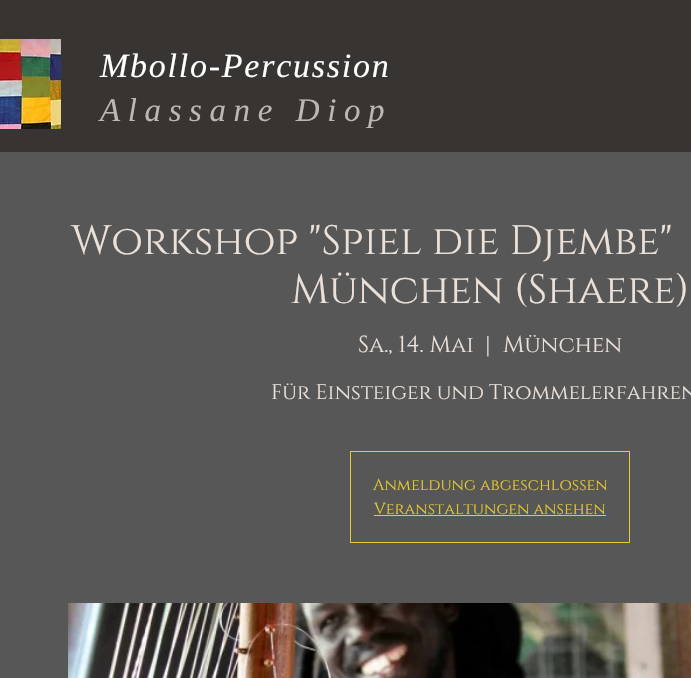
#include "include/core/SkBlurTypes.h"
#include "include/core/SkCanvas.h"
#include "include/core/SkData.h"
#include "include/core/SkFont.h"
#include "include/core/SkFontMgr.h"
#include "include/core/SkImage.h"
#include "include/core/SkMaskFilter.h"
#include "include/core/SkPaint.h"
#include "include/core/SkPathBuilder.h"
#include "include/core/SkTextBlob.h"
#include "include/effects/SkDashPathEffect.h"
#include "include/effects/SkGradientShader.h"
#include "include/utils/SkParsePath.h"

extern sk_sp<SkFontMgr> fontMgr;

void draw(SkCanvas* canvas) {
  SkPaint p;
  p.setAntiAlias(true);
  auto spacedText = [&](const char* s, float x, float y, const SkFont& font, const SkPaint& ink, float letter, float word) {
    std::vector<SkGlyphID> glyphs(font.countText(s, strlen(s), SkTextEncoding::kUTF8));
    std::vector<float> xs(glyphs.size());
    font.textToGlyphs(s, strlen(s), SkTextEncoding::kUTF8, glyphs);
    font.getXPos(glyphs, xs, x);
    float extra = 0;
    for (size_t i = 0; i < glyphs.size(); i++) {
      xs[i] += extra;
      extra += letter + word * (glyphs[i] == font.unicharToGlyph(' '));
    }
    canvas->drawTextBlob(SkTextBlob::MakeFromPosHGlyphs(glyphs, xs, y, font), 0, 0, ink);
  };
  canvas->clear(SkColorSetRGB(56, 52, 50));
  canvas->drawImageRect(SkImages::DeferredFromEncodedData(SkData::MakeFromFileName("images/1.png")), SkRect::MakeLTRB(0, 39, 61, 129), SkSamplingOptions());
  p.setColor(SkColorSetRGB(87, 87, 87));
  canvas->drawRect(SkRect::MakeLTRB(0, 152, 691, 678), p);
  p.setStyle(SkPaint::kStroke_Style);
  p.setStrokeWidth(1);
  p.setColor(SkColorSetRGB(233, 204, 43));
  canvas->drawRect(SkRect::MakeLTRB(350.5f, 451.5f, 629.5f, 542.5f), p);
  p.setStyle(SkPaint::kFill_Style);
  canvas->drawRect(SkRect::MakeLTRB(374, 515, 606, 516), p);
  canvas->drawImageRect(SkImages::DeferredFromEncodedData(SkData::MakeFromFileName("images/2.png")), SkRect::MakeLTRB(68, 603, 691, 678), SkSamplingOptions());
  SkFont font1(fontMgr->matchFamilyStyle("Liberation Serif", SkFontStyle::Italic()), 34);
  font1.setSubpixel(true);
  p.setColor(SK_ColorWHITE);
  spacedText("Mbollo-Percussion", 100, 77, font1, p, 1.75f, 0);
  SkFont font2(fontMgr->matchFamilyStyle("Liberation Serif", SkFontStyle::Italic()), 33);
  font2.setSubpixel(true);
  p.setColor(SkColorSetRGB(190, 182, 176));
  spacedText("Alassane Diop", 100, 121, font2, p, 7.6f, 0);
  SkFont font3(fontMgr->matchFamilyStyle("Cinzel", SkFontStyle::Normal()), 41);
  font3.setSubpixel(true);
  p.setColor(SkColorSetRGB(235, 225, 217));
  canvas->drawString("Workshop \"Spiel die Djembe\"", 71, 254, font3, p);
  canvas->drawString("München (Shaere)", 291, 303, font3, p);
  SkFont font4(fontMgr->matchFamilyStyle("Cinzel", SkFontStyle::Normal()), 23);
  font4.setSubpixel(true);
  canvas->drawString("Sa., 14. Mai", 358, 352, font4, p);
  canvas->drawString("|", 485, 352, font4, p);
  canvas->drawString("München", 503, 352, font4, p);
  SkFont font5(fontMgr->matchFamilyStyle("Cinzel", SkFontStyle::Normal()), 21);
  font5.setSubpixel(true);
  canvas->drawString("Für Einsteiger und Trommelerfahren", 271, 399, font5, p);
  SkFont font6(fontMgr->matchFamilyStyle("Cinzel", SkFontStyle::Normal()), 16);
  font6.setSubpixel(true);
  p.setColor(SkColorSetRGB(233, 204, 43));
  canvas->drawString("Anmeldung abgeschlossen", 373, 490, font6, p);
  canvas->drawString("Veranstaltungen ansehen", 374, 514, font6, p);
}
